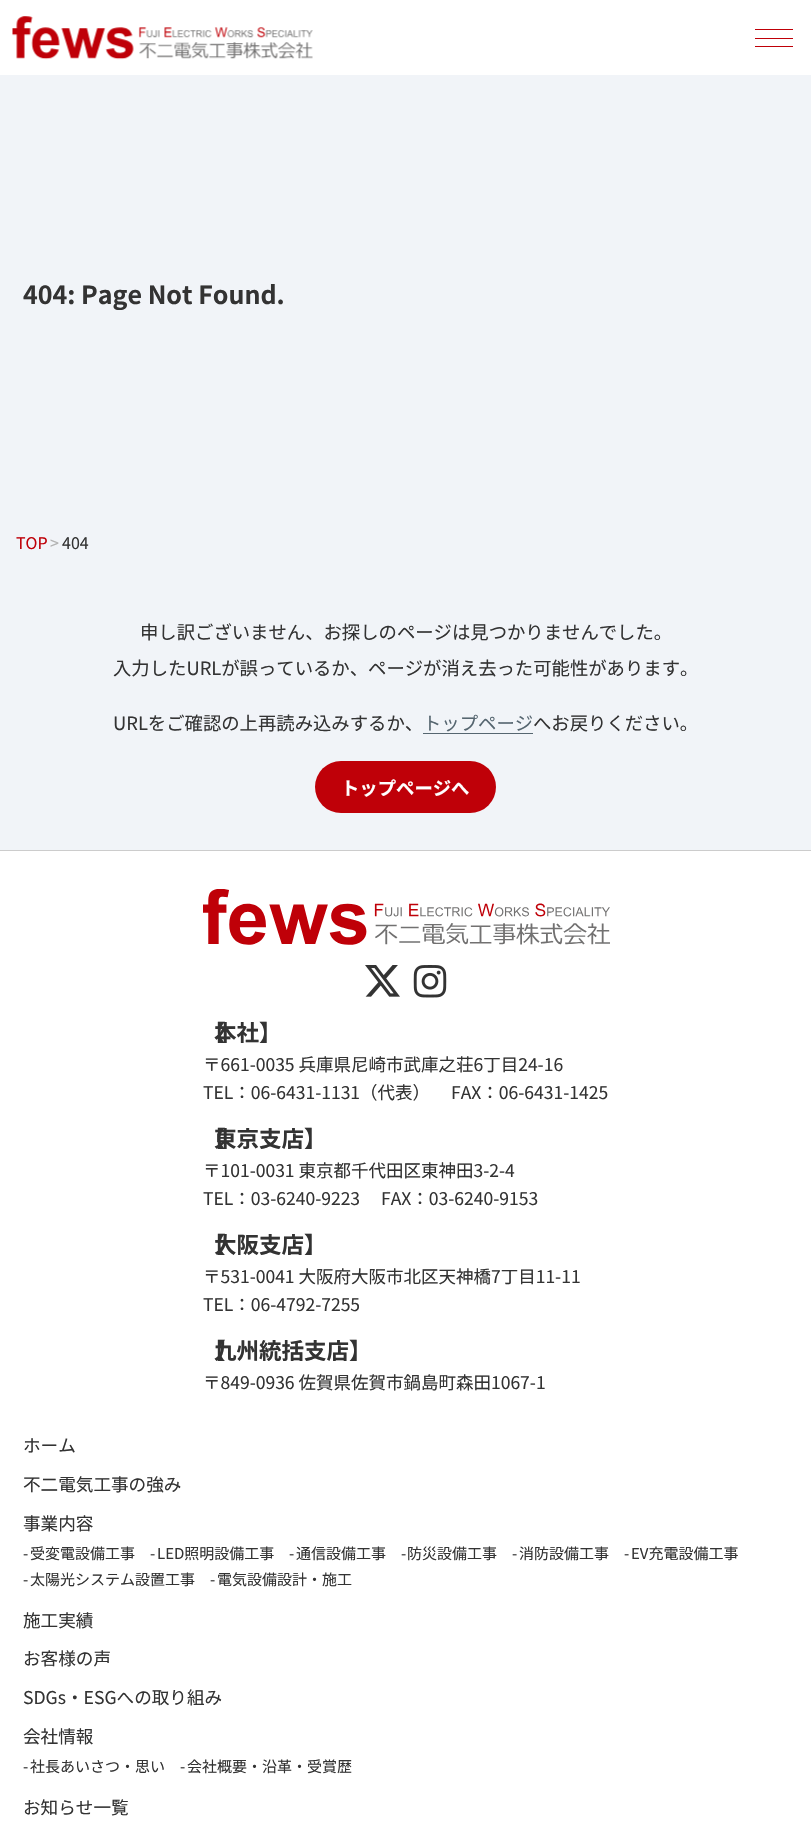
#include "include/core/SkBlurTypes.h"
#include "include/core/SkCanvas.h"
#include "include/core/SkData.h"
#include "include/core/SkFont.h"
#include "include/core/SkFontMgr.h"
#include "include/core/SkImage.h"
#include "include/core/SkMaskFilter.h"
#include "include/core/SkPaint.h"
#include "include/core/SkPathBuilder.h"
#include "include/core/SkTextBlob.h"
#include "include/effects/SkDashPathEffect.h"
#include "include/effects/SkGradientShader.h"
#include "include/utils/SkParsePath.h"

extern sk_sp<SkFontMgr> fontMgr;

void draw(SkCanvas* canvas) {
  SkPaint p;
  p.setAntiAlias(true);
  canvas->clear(SK_ColorWHITE);
  canvas->drawImageRect(SkImages::DeferredFromEncodedData(SkData::MakeFromFileName("images/1.png")), SkRect::MakeLTRB(12, 16, 313, 60), SkSamplingOptions());
  p.setColor(SkColorSetRGB(191, 0, 8));
  canvas->drawRect(SkRect::MakeLTRB(755, 29, 793, 30), p);
  canvas->drawRect(SkRect::MakeLTRB(755, 38, 793, 39), p);
  canvas->drawRect(SkRect::MakeLTRB(755, 46, 793, 47), p);
  p.setColor(SkColorSetRGB(241, 244, 248));
  canvas->drawRect(SkRect::MakeLTRB(0, 75, 811, 850), p);
  p.setColor(SkColorSetRGB(86, 102, 112));
  canvas->drawRect(SkRect::MakeLTRB(423, 733, 533, 734), p);
  p.setColor(SkColorSetRGB(191, 0, 8));
  canvas->drawRoundRect(SkRect::MakeLTRB(315, 761, 496, 813), 26, 26, p);
  p.setColor(SkColorSetRGB(204, 204, 204));
  canvas->drawRect(SkRect::MakeLTRB(0, 850, 811, 851), p);
  canvas->drawImageRect(SkImages::DeferredFromEncodedData(SkData::MakeFromFileName("images/2.png")), SkRect::MakeLTRB(203, 889, 610, 945), SkSamplingOptions());
  canvas->drawImageRect(SkImages::DeferredFromEncodedData(SkData::MakeFromFileName("images/3.png")), SkRect::MakeLTRB(365, 965, 400, 997), SkSamplingOptions());
  canvas->drawImageRect(SkImages::DeferredFromEncodedData(SkData::MakeFromFileName("images/4.png")), SkRect::MakeLTRB(413, 965, 447, 998), SkSamplingOptions());
  SkFont font1(fontMgr->matchFamilyStyle("Noto Sans JP", SkFontStyle::Bold()), 25);
  font1.setSubpixel(true);
  p.setColor(SkColorSetRGB(51, 51, 51));
  canvas->drawString("404: Page Not Found.", 23, 304, font1, p);
  SkFont font2(fontMgr->matchFamilyStyle("Noto Sans JP", SkFontStyle::Normal()), 16);
  font2.setSubpixel(true);
  p.setColor(SkColorSetRGB(191, 0, 8));
  canvas->drawString("TOP", 16, 549, font2, p);
  p.setColor(SkColorSetRGB(178, 178, 178));
  canvas->drawString(">", 50, 549, font2, p);
  p.setColor(SkColorSetRGB(51, 51, 51));
  canvas->drawString("404", 62, 549, font2, p);
  SkFont font3(fontMgr->matchFamilyStyle("Noto Sans JP", SkFontStyle::Normal()), 18.35f);
  font3.setSubpixel(true);
  canvas->drawString("申し訳ございません、お探しのページは見つかりませんでした。", 140, 639, font3, p);
  canvas->drawString("入力したURLが誤っているか、ページが消え去った可能性があります。", 113, 675, font3, p);
  canvas->drawString("URLをご確認の上再読み込みするか、", 113, 730, font3, p);
  p.setColor(SkColorSetRGB(86, 102, 112));
  canvas->drawString("トップページ", 423, 730, font3, p);
  p.setColor(SkColorSetRGB(51, 51, 51));
  canvas->drawString("へお戻りください。", 533, 730, font3, p);
  SkFont font4(fontMgr->matchFamilyStyle("Noto Sans JP", SkFontStyle::Bold()), 18.35f);
  font4.setSubpixel(true);
  p.setColor(SK_ColorWHITE);
  canvas->drawString("トップページへ", 341, 795, font4, p);
  SkFont font5(fontMgr->matchFamilyStyle("Noto Sans JP", SkFontStyle::Bold()), 22.5f);
  font5.setSubpixel(true);
  p.setColor(SkColorSetRGB(51, 51, 51));
  canvas->drawString("【", 203, 1041, font5, p);
  canvas->drawString("本社】", 214, 1041, font5, p);
  SkFont font6(fontMgr->matchFamilyStyle("Noto Sans JP", SkFontStyle::Normal()), 17.5f);
  font6.setSubpixel(true);
  canvas->drawString("〒661-0035 兵庫県尼崎市武庫之荘6丁目24-16", 203, 1071, font6, p);
  canvas->drawString("TEL：06-6431-1131（代表）", 203, 1099, font6, p);
  canvas->drawString("FAX：06-6431-1425", 451, 1099, font6, p);
  canvas->drawString("【", 203, 1147, font5, p);
  canvas->drawString("東京支店】", 214, 1147, font5, p);
  canvas->drawString("〒101-0031 東京都千代田区東神田3-2-4", 203, 1177, font6, p);
  canvas->drawString("TEL：03-6240-9223", 203, 1205, font6, p);
  canvas->drawString("FAX：03-6240-9153", 381, 1205, font6, p);
  canvas->drawString("【", 203, 1253, font5, p);
  canvas->drawString("大阪支店】", 214, 1253, font5, p);
  canvas->drawString("〒531-0041 大阪府大阪市北区天神橋7丁目11-11", 203, 1283, font6, p);
  canvas->drawString("TEL：06-4792-7255", 203, 1311, font6, p);
  canvas->drawString("【", 203, 1359, font5, p);
  canvas->drawString("九州統括支店】", 214, 1359, font5, p);
  canvas->drawString("〒849-0936 佐賀県佐賀市鍋島町森田1067-1", 203, 1389, font6, p);
  SkFont font7(fontMgr->matchFamilyStyle("Noto Sans JP", SkFontStyle::Normal()), 17.6f);
  font7.setSubpixel(true);
  canvas->drawString("ホーム", 23, 1452, font7, p);
  canvas->drawString("不二電気工事の強み", 23, 1491, font7, p);
  canvas->drawString("事業内容", 23, 1530, font7, p);
  SkFont font8(fontMgr->matchFamilyStyle("Noto Sans JP", SkFontStyle::Normal()), 15);
  font8.setSubpixel(true);
  canvas->drawString("-", 23, 1559, font8, p);
  canvas->drawString("受変電設備工事", 30, 1559, font8, p);
  canvas->drawString("-", 150, 1559, font8, p);
  canvas->drawString("LED照明設備工事", 157, 1559, font8, p);
  canvas->drawString("-", 289, 1559, font8, p);
  canvas->drawString("通信設備工事", 296, 1559, font8, p);
  canvas->drawString("-", 401, 1559, font8, p);
  canvas->drawString("防災設備工事", 407, 1559, font8, p);
  canvas->drawString("-", 512, 1559, font8, p);
  canvas->drawString("消防設備工事", 519, 1559, font8, p);
  canvas->drawString("-", 624, 1559, font8, p);
  canvas->drawString("EV充電設備工事", 631, 1559, font8, p);
  canvas->drawString("-", 23, 1585, font8, p);
  canvas->drawString("太陽光システム設置工事", 30, 1585, font8, p);
  canvas->drawString("-", 210, 1585, font8, p);
  canvas->drawString("電気設備設計・施工", 217, 1585, font8, p);
  canvas->drawString("施工実績", 23, 1627, font7, p);
  canvas->drawString("お客様の声", 23, 1665, font7, p);
  canvas->drawString("SDGs・ESGへの取り組み", 23, 1704, font7, p);
  canvas->drawString("会社情報", 23, 1743, font7, p);
  canvas->drawString("-", 23, 1772, font8, p);
  canvas->drawString("社長あいさつ・思い", 30, 1772, font8, p);
  canvas->drawString("-", 180, 1772, font8, p);
  canvas->drawString("会社概要・沿革・受賞歴", 187, 1772, font8, p);
  canvas->drawString("お知らせ一覧", 23, 1814, font7, p);
}
